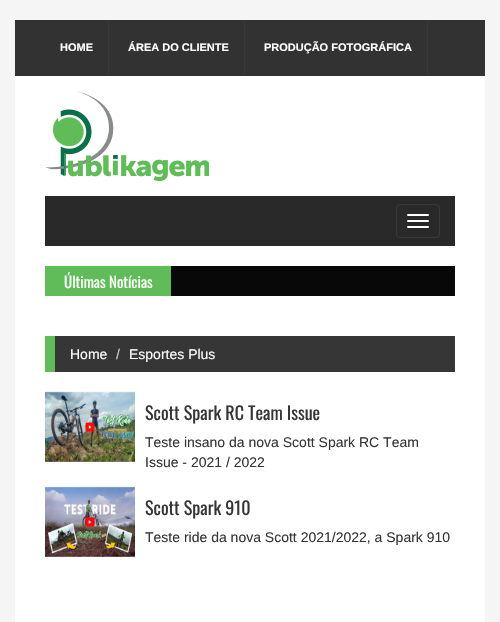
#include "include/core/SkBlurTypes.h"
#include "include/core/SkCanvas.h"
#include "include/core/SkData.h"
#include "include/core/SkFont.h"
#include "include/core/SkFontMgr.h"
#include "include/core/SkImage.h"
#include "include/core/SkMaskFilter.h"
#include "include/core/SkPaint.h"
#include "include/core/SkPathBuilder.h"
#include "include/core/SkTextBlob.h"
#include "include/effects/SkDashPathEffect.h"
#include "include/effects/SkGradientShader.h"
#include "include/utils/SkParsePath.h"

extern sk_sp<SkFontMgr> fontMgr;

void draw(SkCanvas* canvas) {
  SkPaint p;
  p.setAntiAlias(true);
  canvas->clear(SkColorSetRGB(245, 245, 245));
  p.setColor(SkColorSetRGB(50, 50, 50));
  canvas->drawRect(SkRect::MakeLTRB(15, 20, 485, 76), p);
  p.setColor(SkColorSetRGB(57, 57, 57));
  canvas->drawRect(SkRect::MakeLTRB(108, 20, 109, 76), p);
  canvas->drawRect(SkRect::MakeLTRB(244, 20, 245, 76), p);
  canvas->drawRect(SkRect::MakeLTRB(427, 20, 428, 76), p);
  p.setColor(SK_ColorWHITE);
  canvas->drawRect(SkRect::MakeLTRB(15, 76, 485, 622), p);
  canvas->drawImageRect(SkImages::DeferredFromEncodedData(SkData::MakeFromFileName("images/1.png")), SkRect::MakeLTRB(45, 91, 209, 181), SkSamplingOptions());
  p.setColor(SkColorSetRGB(41, 41, 41));
  canvas->drawRect(SkRect::MakeLTRB(45, 196, 455, 246), p);
  p.setStyle(SkPaint::kStroke_Style);
  p.setStrokeWidth(1);
  p.setColor(SkColorSetRGB(57, 57, 57));
  canvas->drawRoundRect(SkRect::MakeLTRB(396.5f, 204.5f, 439.5f, 237.5f), 3.5f, 3.5f, p);
  p.setStyle(SkPaint::kFill_Style);
  p.setColor(SK_ColorWHITE);
  canvas->drawRoundRect(SkRect::MakeLTRB(407, 214, 429, 216), 1, 1, p);
  canvas->drawRoundRect(SkRect::MakeLTRB(407, 220, 429, 222), 1, 1, p);
  canvas->drawRoundRect(SkRect::MakeLTRB(407, 226, 429, 228), 1, 1, p);
  p.setColor(SkColorSetRGB(8, 8, 8));
  canvas->drawRect(SkRect::MakeLTRB(171, 266, 455, 296), p);
  p.setColor(SkColorSetRGB(96, 188, 89));
  canvas->drawRect(SkRect::MakeLTRB(45, 266, 171, 296), p);
  p.setColor(SkColorSetRGB(54, 54, 54));
  canvas->drawRect(SkRect::MakeLTRB(55, 336, 455, 372), p);
  p.setColor(SkColorSetRGB(96, 188, 89));
  canvas->drawRect(SkRect::MakeLTRB(45, 336, 55, 372), p);
  canvas->drawImageRect(SkImages::DeferredFromEncodedData(SkData::MakeFromFileName("images/2.png")), SkRect::MakeLTRB(45, 391, 135, 462), SkSamplingOptions());
  canvas->drawImageRect(SkImages::DeferredFromEncodedData(SkData::MakeFromFileName("images/3.png")), SkRect::MakeLTRB(45, 486, 135, 557), SkSamplingOptions());
  SkFont font1(fontMgr->matchFamilyStyle("Liberation Sans", SkFontStyle::Bold()), 11);
  font1.setSubpixel(true);
  p.setColor(SK_ColorWHITE);
  canvas->drawString("HOME", 60, 51, font1, p);
  canvas->drawString("ÁREA DO CLIENTE", 128, 51, font1, p);
  canvas->drawString("PRODUÇÃO FOTOGRÁFICA", 264, 51, font1, p);
  SkFont font2(fontMgr->matchFamilyStyle("Oswald", SkFontStyle::Normal()), 15);
  font2.setSubpixel(true);
  canvas->drawString("Últimas Notícias", 64, 288, font2, p);
  SkFont font3(fontMgr->matchFamilyStyle("Liberation Sans", SkFontStyle::Normal()), 14);
  font3.setSubpixel(true);
  canvas->drawString("Home", 70, 359, font3, p);
  p.setColor(SkColorSetRGB(206, 206, 206));
  canvas->drawString("/", 116, 359, font3, p);
  p.setColor(SK_ColorWHITE);
  canvas->drawString("Esportes Plus", 129, 359, font3, p);
  SkFont font4(fontMgr->matchFamilyStyle("Oswald", SkFontStyle::Normal()), 18);
  font4.setSubpixel(true);
  p.setColor(SkColorSetRGB(53, 53, 53));
  canvas->drawString("Scott Spark RC Team Issue", 145, 420, font4, p);
  canvas->drawString("Teste insano da nova Scott Spark RC Team", 145, 447, font3, p);
  canvas->drawString("Issue - 2021 / 2022", 145, 467, font3, p);
  canvas->drawString("Scott Spark 910", 145, 515, font4, p);
  canvas->drawString("Teste ride da nova Scott 2021/2022, a Spark 910", 145, 542, font3, p);
}
